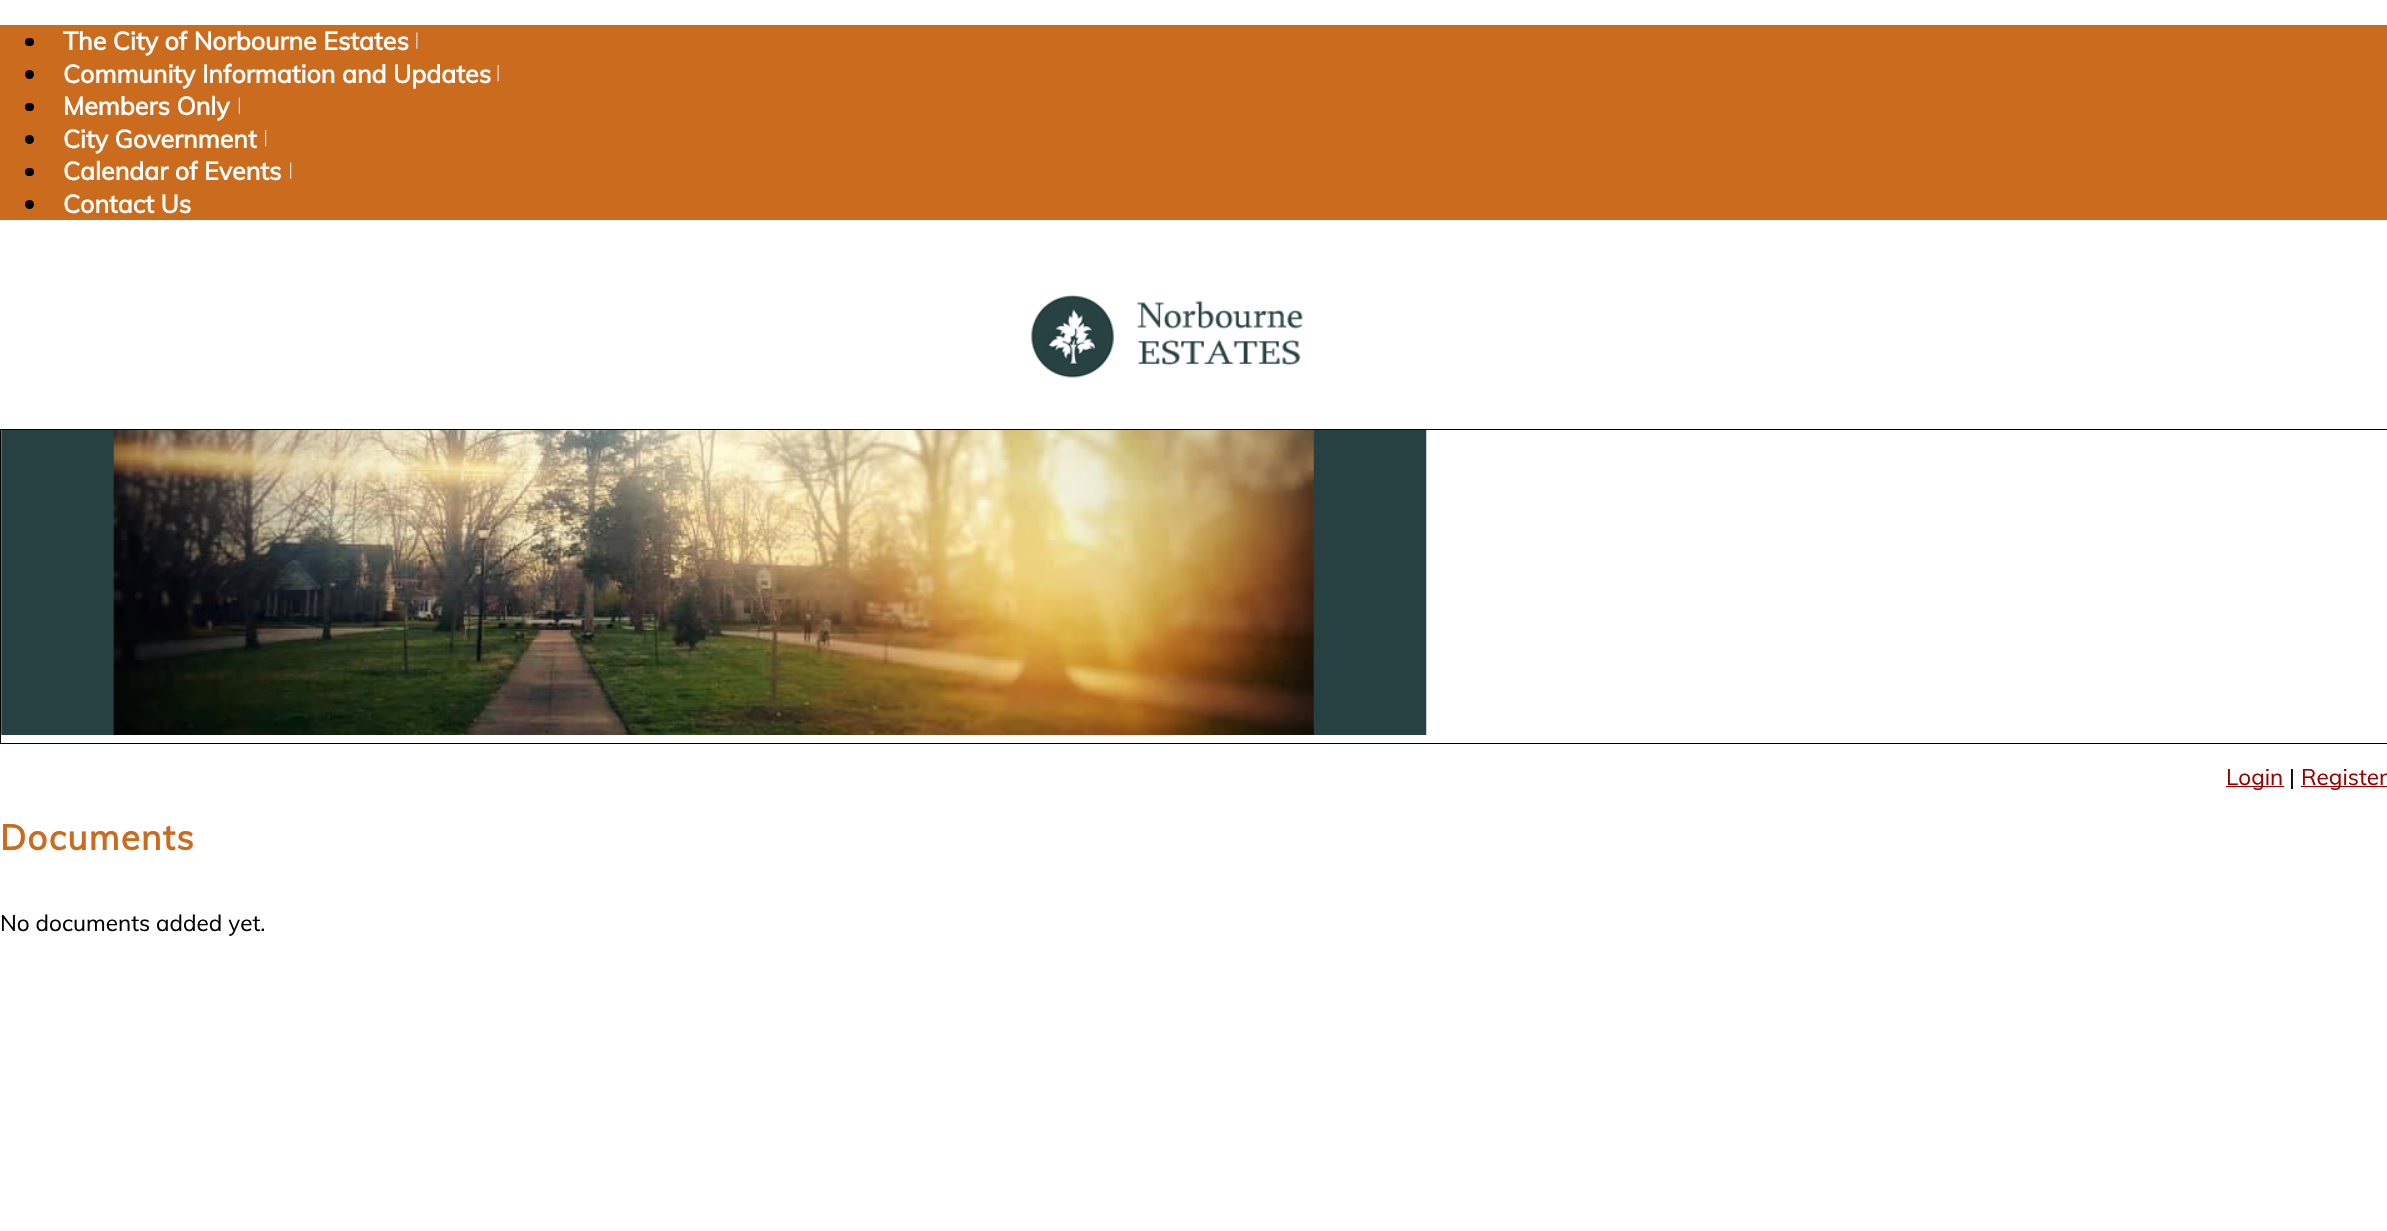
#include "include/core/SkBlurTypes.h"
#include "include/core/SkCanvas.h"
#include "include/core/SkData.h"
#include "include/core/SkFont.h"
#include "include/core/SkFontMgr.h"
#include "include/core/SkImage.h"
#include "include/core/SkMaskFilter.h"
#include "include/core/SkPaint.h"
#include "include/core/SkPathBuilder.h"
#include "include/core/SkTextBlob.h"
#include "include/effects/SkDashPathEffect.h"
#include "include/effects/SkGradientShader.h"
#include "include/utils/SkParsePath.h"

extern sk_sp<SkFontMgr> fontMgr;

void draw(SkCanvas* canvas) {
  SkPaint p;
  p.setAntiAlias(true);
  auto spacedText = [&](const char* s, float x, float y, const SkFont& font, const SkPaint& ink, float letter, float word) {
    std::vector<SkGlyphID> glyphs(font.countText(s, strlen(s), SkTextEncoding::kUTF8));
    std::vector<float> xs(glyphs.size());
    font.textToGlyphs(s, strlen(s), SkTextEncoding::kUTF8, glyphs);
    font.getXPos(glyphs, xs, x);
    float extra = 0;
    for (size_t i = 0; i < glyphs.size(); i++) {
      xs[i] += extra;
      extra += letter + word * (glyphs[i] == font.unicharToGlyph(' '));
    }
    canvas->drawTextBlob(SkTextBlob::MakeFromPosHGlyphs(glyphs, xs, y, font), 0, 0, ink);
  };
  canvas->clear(SK_ColorWHITE);
  p.setColor(SkColorSetRGB(203, 107, 29));
  canvas->drawRect(SkRect::MakeLTRB(0, 25, 2387, 220), p);
  p.setColor(SK_ColorBLACK);
  canvas->drawRoundRect(SkRect::MakeLTRB(25, 38, 34, 46), 4, 4, p);
  canvas->drawImageRect(SkImages::DeferredFromEncodedData(SkData::MakeFromFileName("images/1.png")), SkRect::MakeLTRB(416, 32, 418, 49), SkSamplingOptions());
  canvas->drawCircle(29.5f, 74.5f, 4.5f, p);
  canvas->drawImageRect(SkImages::DeferredFromEncodedData(SkData::MakeFromFileName("images/2.png")), SkRect::MakeLTRB(497, 65, 499, 82), SkSamplingOptions());
  canvas->drawRoundRect(SkRect::MakeLTRB(25, 103, 34, 111), 4, 4, p);
  canvas->drawImageRect(SkImages::DeferredFromEncodedData(SkData::MakeFromFileName("images/3.png")), SkRect::MakeLTRB(238, 97, 240, 114), SkSamplingOptions());
  canvas->drawCircle(29.5f, 139.5f, 4.5f, p);
  canvas->drawImageRect(SkImages::DeferredFromEncodedData(SkData::MakeFromFileName("images/4.png")), SkRect::MakeLTRB(265, 130, 267, 147), SkSamplingOptions());
  canvas->drawRoundRect(SkRect::MakeLTRB(25, 168, 34, 176), 4, 4, p);
  canvas->drawImageRect(SkImages::DeferredFromEncodedData(SkData::MakeFromFileName("images/5.png")), SkRect::MakeLTRB(290, 162, 292, 179), SkSamplingOptions());
  canvas->drawCircle(29.5f, 204.5f, 4.5f, p);
  canvas->drawImageRect(SkImages::DeferredFromEncodedData(SkData::MakeFromFileName("images/6.png")), SkRect::MakeLTRB(1031, 295, 1303, 378), SkSamplingOptions());
  p.setStyle(SkPaint::kStroke_Style);
  p.setStrokeWidth(1);
  canvas->drawRect(SkRect::MakeLTRB(0.5f, 429.5f, 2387.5f, 743.5f), p);
  canvas->drawImageRect(SkImages::DeferredFromEncodedData(SkData::MakeFromFileName("images/7.png")), SkRect::MakeLTRB(1, 430, 1427, 735), SkSamplingOptions());
  p.setStyle(SkPaint::kFill_Style);
  p.setColor(SkColorSetRGB(153, 0, 0));
  canvas->drawRect(SkRect::MakeLTRB(2226, 786, 2284, 787), p);
  canvas->drawRect(SkRect::MakeLTRB(2301, 786, 2387, 787), p);
  SkFont font1(fontMgr->matchFamilyStyle("Muli", SkFontStyle::Bold()), 25);
  font1.setSubpixel(true);
  p.setColor(SK_ColorWHITE);
  canvas->drawString("The City of Norbourne Estates", 63, 50, font1, p);
  canvas->drawString("Community Information and Updates", 63, 83, font1, p);
  canvas->drawString("Members Only", 63, 115, font1, p);
  canvas->drawString("City Government", 63, 148, font1, p);
  canvas->drawString("Calendar of Events", 63, 180, font1, p);
  canvas->drawString("Contact Us", 63, 213, font1, p);
  SkFont font2(fontMgr->matchFamilyStyle("Muli", SkFontStyle::Normal()), 22.5f);
  font2.setSubpixel(true);
  p.setColor(SkColorSetRGB(153, 0, 0));
  canvas->drawString("Login", 2226, 785, font2, p);
  p.setColor(SK_ColorBLACK);
  canvas->drawString("|", 2289, 785, font2, p);
  p.setColor(SkColorSetRGB(153, 0, 0));
  canvas->drawString("Register", 2301, 785, font2, p);
  SkFont font3(fontMgr->matchFamilyStyle("Muli", SkFontStyle::Bold()), 35);
  font3.setSubpixel(true);
  p.setColor(SkColorSetRGB(203, 107, 29));
  spacedText("Documents", 0, 850, font3, p, 1.25f, 0);
  p.setColor(SK_ColorBLACK);
  canvas->drawString("No documents added yet.", 0, 931, font2, p);
}
